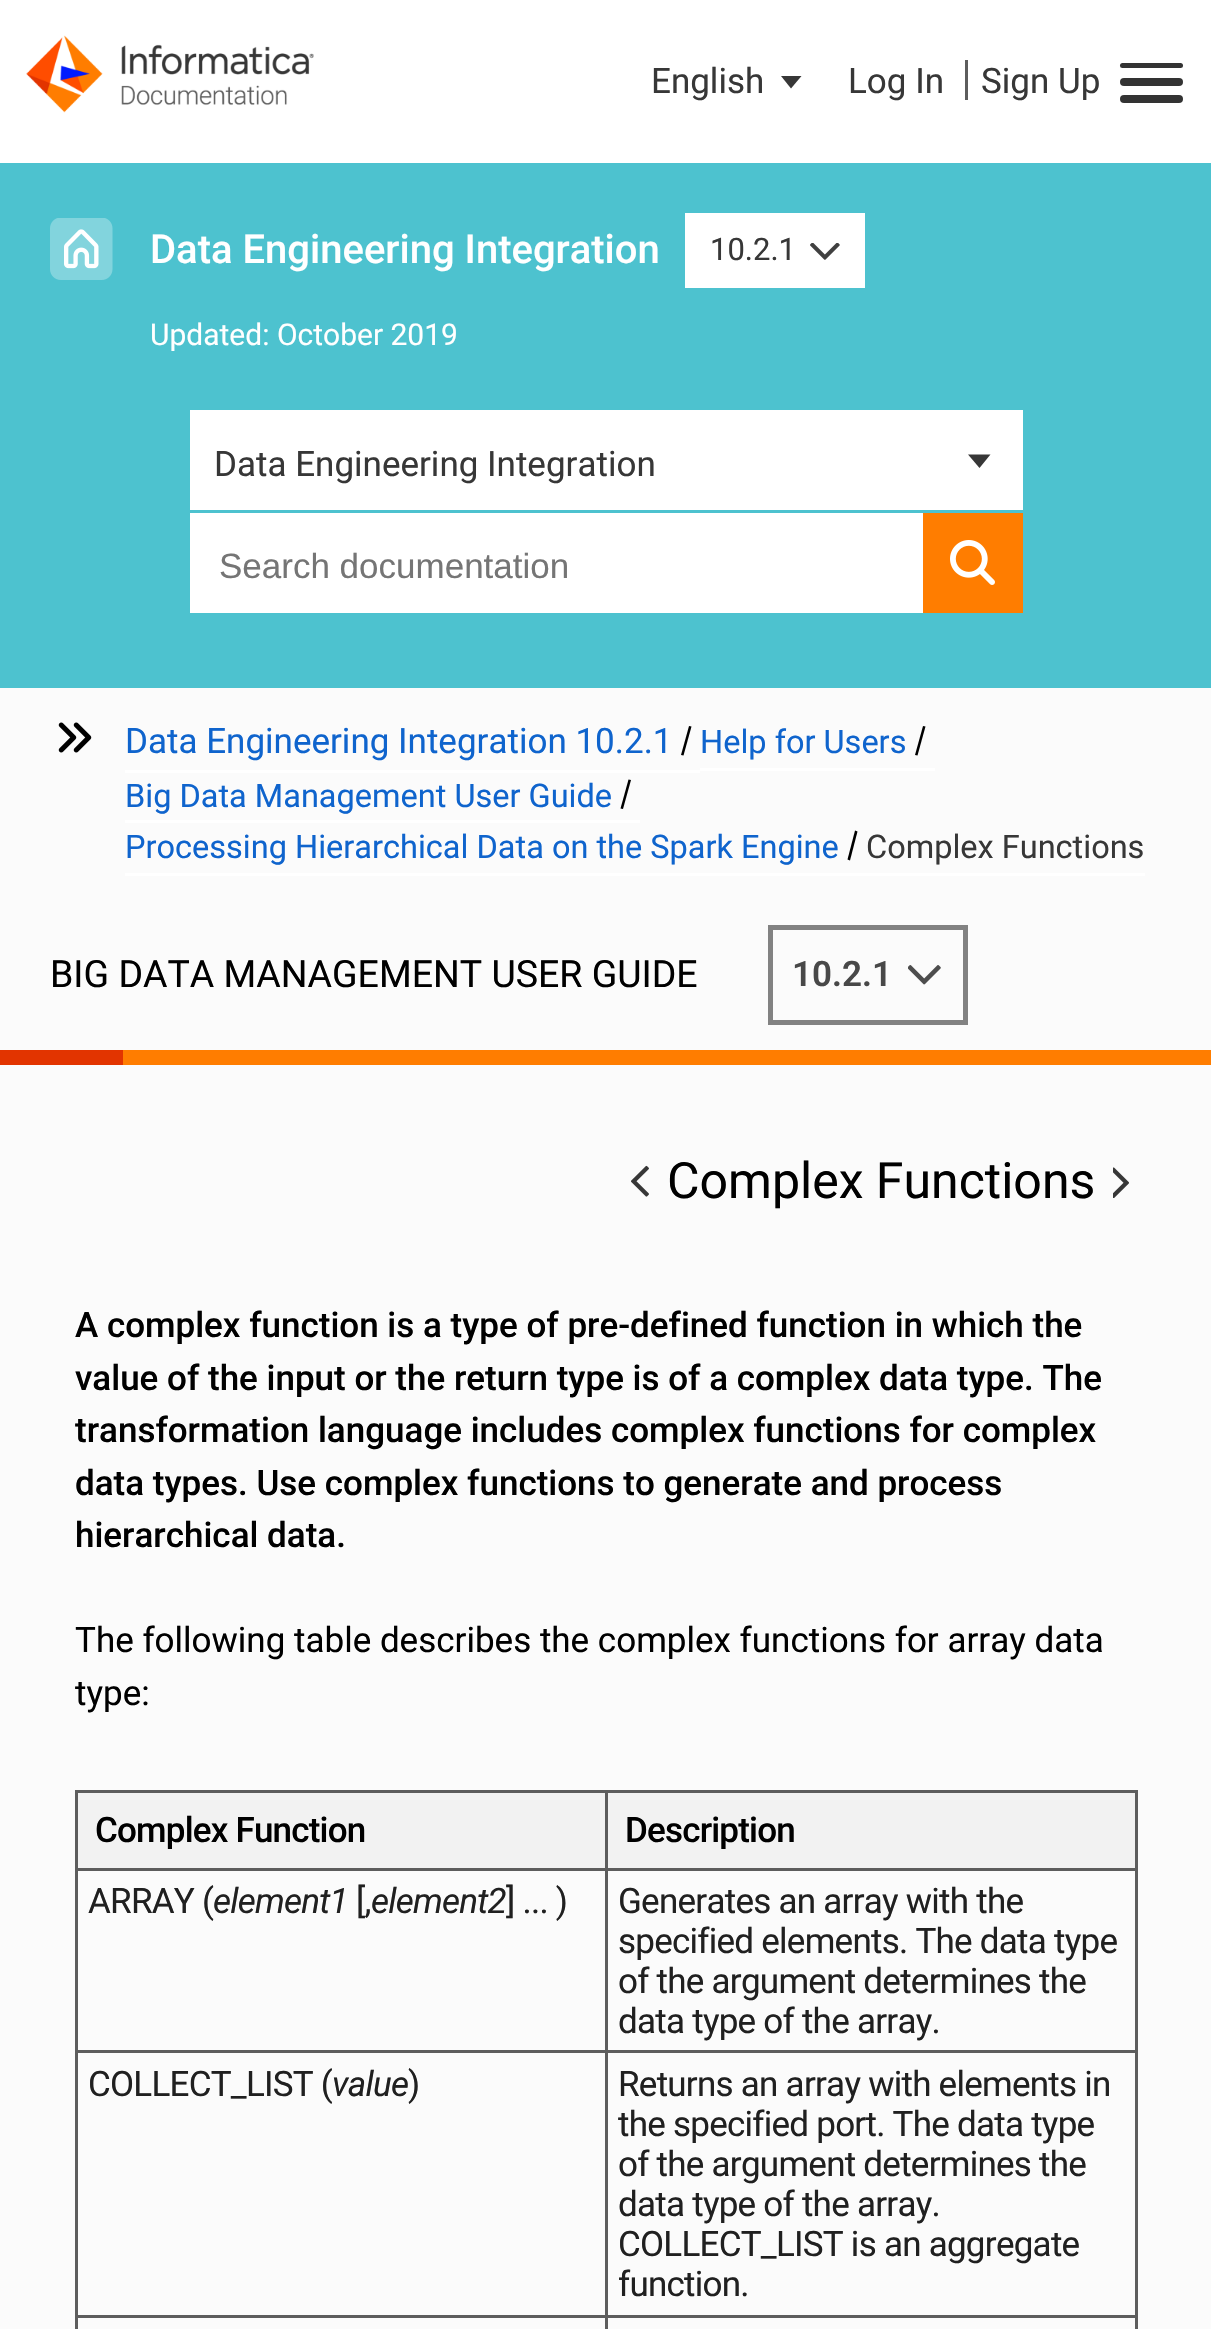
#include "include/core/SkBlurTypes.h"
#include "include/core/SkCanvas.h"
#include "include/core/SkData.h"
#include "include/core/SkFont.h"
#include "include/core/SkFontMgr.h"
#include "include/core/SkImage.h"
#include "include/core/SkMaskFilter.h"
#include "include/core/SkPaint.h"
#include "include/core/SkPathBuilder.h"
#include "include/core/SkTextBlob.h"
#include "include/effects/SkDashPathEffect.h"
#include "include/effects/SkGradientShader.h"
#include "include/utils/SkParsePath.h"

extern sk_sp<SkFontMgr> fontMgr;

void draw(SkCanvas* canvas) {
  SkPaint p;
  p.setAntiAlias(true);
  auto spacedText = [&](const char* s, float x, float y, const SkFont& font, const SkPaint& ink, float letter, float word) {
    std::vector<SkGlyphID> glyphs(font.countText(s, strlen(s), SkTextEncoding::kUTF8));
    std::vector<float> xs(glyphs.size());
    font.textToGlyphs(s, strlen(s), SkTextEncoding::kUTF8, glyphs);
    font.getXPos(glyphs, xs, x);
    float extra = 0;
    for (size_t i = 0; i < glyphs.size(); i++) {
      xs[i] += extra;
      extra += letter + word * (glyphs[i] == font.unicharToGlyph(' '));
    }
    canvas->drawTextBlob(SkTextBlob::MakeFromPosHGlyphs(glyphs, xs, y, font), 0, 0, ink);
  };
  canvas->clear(SK_ColorWHITE);
  canvas->drawImageRect(SkImages::DeferredFromEncodedData(SkData::MakeFromFileName("images/1.png")), SkRect::MakeLTRB(26, 35, 314, 113), SkSamplingOptions());
  p.setColor(SkColorSetRGB(55, 55, 55));
  canvas->drawPath(SkPathBuilder().moveTo(801.5f, 76).lineTo(791, 88.5f).lineTo(781, 76).close().detach(), p);
  p.setColor(SkColorSetRGB(93, 93, 93));
  canvas->drawRect(SkRect::MakeLTRB(965, 60, 968, 100), p);
  p.setColor(SkColorSetRGB(51, 51, 51));
  canvas->drawRoundRect(SkRect::MakeLTRB(1120, 63, 1183, 68), 2.5f, 2.5f, p);
  canvas->drawRoundRect(SkRect::MakeLTRB(1120, 78, 1183, 86), 4, 4, p);
  canvas->drawRoundRect(SkRect::MakeLTRB(1120, 95, 1183, 103), 4, 4, p);
  p.setColor(SkColorSetRGB(77, 194, 207));
  canvas->drawRect(SkRect::MakeLTRB(0, 163, 1211, 688), p);
  canvas->drawImageRect(SkImages::DeferredFromEncodedData(SkData::MakeFromFileName("images/2.png")), SkRect::MakeLTRB(50, 218, 113, 280), SkSamplingOptions());
  p.setColor(SK_ColorWHITE);
  canvas->drawRect(SkRect::MakeLTRB(685, 213, 865, 288), p);
  canvas->drawImageRect(SkImages::DeferredFromEncodedData(SkData::MakeFromFileName("images/3.png")), SkRect::MakeLTRB(810, 243, 840, 260), SkSamplingOptions());
  canvas->drawRect(SkRect::MakeLTRB(190, 410, 1023, 510), p);
  p.setColor(SkColorSetRGB(55, 55, 55));
  canvas->drawPath(SkPathBuilder().moveTo(990.5f, 454.5f).lineTo(979.5f, 468).lineTo(968, 454.5f).close().detach(), p);
  p.setColor(SK_ColorWHITE);
  canvas->drawRect(SkRect::MakeLTRB(190, 513, 923, 613), p);
  p.setColor(SkColorSetRGB(255, 125, 0));
  canvas->drawRect(SkRect::MakeLTRB(923, 513, 1023, 613), p);
  canvas->drawImageRect(SkImages::DeferredFromEncodedData(SkData::MakeFromFileName("images/4.png")), SkRect::MakeLTRB(950, 540, 995, 585), SkSamplingOptions());
  p.setColor(SkColorSetRGB(251, 251, 251));
  canvas->drawRect(SkRect::MakeLTRB(0, 688, 1211, 2329), p);
  canvas->drawImageRect(SkImages::DeferredFromEncodedData(SkData::MakeFromFileName("images/5.png")), SkRect::MakeLTRB(58, 722, 92, 753), SkSamplingOptions());
  p.setColor(SK_ColorWHITE);
  canvas->drawRect(SkRect::MakeLTRB(125, 770, 700, 773), p);
  p.setColor(SK_ColorBLACK);
  canvas->drawPath(SkPathBuilder().moveTo(689, 726).lineTo(691.5f, 726.5f).lineTo(683.5f, 755.5f).lineTo(681, 755).close().detach(), p);
  p.setColor(SK_ColorWHITE);
  canvas->drawRect(SkRect::MakeLTRB(700, 768, 935, 771), p);
  p.setColor(SK_ColorBLACK);
  canvas->drawPath(SkPathBuilder().moveTo(923, 726).lineTo(925.5f, 726.5f).lineTo(917.5f, 755.5f).lineTo(915, 755).close().detach(), p);
  p.setColor(SK_ColorWHITE);
  canvas->drawRect(SkRect::MakeLTRB(125, 820, 640, 823), p);
  p.setColor(SK_ColorBLACK);
  canvas->drawPath(SkPathBuilder().moveTo(628.5f, 779.5f).lineTo(631, 780).lineTo(623, 809).lineTo(620.5f, 808.5f).close().detach(), p);
  p.setColor(SK_ColorWHITE);
  canvas->drawRect(SkRect::MakeLTRB(125, 873, 1145, 876), p);
  p.setColor(SK_ColorBLACK);
  canvas->drawPath(SkPathBuilder().moveTo(855, 830.5f).lineTo(857.5f, 831.5f).lineTo(850, 860.5f).lineTo(847.5f, 859.5f).close().detach(), p);
  p.setStyle(SkPaint::kStroke_Style);
  p.setStrokeWidth(5);
  p.setColor(SkColorSetRGB(130, 130, 130));
  canvas->drawRect(SkRect::MakeLTRB(770.5f, 927.5f, 965.5f, 1022.5f), p);
  canvas->drawImageRect(SkImages::DeferredFromEncodedData(SkData::MakeFromFileName("images/6.png")), SkRect::MakeLTRB(908, 965, 941, 985), SkSamplingOptions());
  p.setStyle(SkPaint::kFill_Style);
  p.setColor(SkColorSetRGB(255, 125, 0));
  canvas->drawRect(SkRect::MakeLTRB(123, 1050, 1211, 1065), p);
  p.setColor(SkColorSetRGB(226, 52, 0));
  canvas->drawRect(SkRect::MakeLTRB(0, 1050, 123, 1065), p);
  canvas->drawImageRect(SkImages::DeferredFromEncodedData(SkData::MakeFromFileName("images/7.png")), SkRect::MakeLTRB(631, 1165, 649, 1197), SkSamplingOptions());
  canvas->drawImageRect(SkImages::DeferredFromEncodedData(SkData::MakeFromFileName("images/8.png")), SkRect::MakeLTRB(1113, 1167, 1129, 1198), SkSamplingOptions());
  p.setColor(SkColorSetRGB(93, 93, 93));
  canvas->drawRect(SkRect::MakeLTRB(75, 1790, 1138, 1793), p);
  canvas->drawRect(SkRect::MakeLTRB(1135, 1790, 1138, 2329), p);
  canvas->drawRect(SkRect::MakeLTRB(75, 1790, 78, 2329), p);
  p.setColor(SkColorSetRGB(242, 242, 242));
  canvas->drawRect(SkRect::MakeLTRB(78, 1793, 605, 1868), p);
  canvas->drawRect(SkRect::MakeLTRB(608, 1793, 1135, 1868), p);
  p.setColor(SkColorSetRGB(93, 93, 93));
  canvas->drawRect(SkRect::MakeLTRB(605, 1868, 1138, 1871), p);
  canvas->drawRect(SkRect::MakeLTRB(605, 2050, 1138, 2053), p);
  canvas->drawRect(SkRect::MakeLTRB(605, 2315, 1138, 2318), p);
  canvas->drawRect(SkRect::MakeLTRB(605, 2315, 608, 2329), p);
  canvas->drawRect(SkRect::MakeLTRB(75, 2315, 608, 2318), p);
  canvas->drawRect(SkRect::MakeLTRB(605, 2050, 608, 2318), p);
  canvas->drawRect(SkRect::MakeLTRB(75, 2050, 608, 2053), p);
  canvas->drawRect(SkRect::MakeLTRB(605, 1868, 608, 2053), p);
  canvas->drawRect(SkRect::MakeLTRB(75, 1868, 608, 1871), p);
  canvas->drawRect(SkRect::MakeLTRB(605, 1790, 608, 1870), p);
  SkFont font1(fontMgr->matchFamilyStyle("Roboto", SkFontStyle::Normal()), 35);
  font1.setSubpixel(true);
  p.setColor(SkColorSetRGB(55, 55, 55));
  canvas->drawString("English", 651, 93, font1, p);
  canvas->drawString("Log In", 848, 93, font1, p);
  canvas->drawString("Sign Up", 981, 93, font1, p);
  SkFont font2(fontMgr->matchFamilyStyle("Roboto", SkFontStyle(500, SkFontStyle::kNormal_Width, SkFontStyle::kUpright_Slant)), 40);
  font2.setSubpixel(true);
  p.setColor(SK_ColorWHITE);
  canvas->drawString("Data Engineering Integration", 150, 263, font2, p);
  SkFont font3(fontMgr->matchFamilyStyle("Roboto", SkFontStyle::Normal()), 31);
  font3.setSubpixel(true);
  p.setColor(SkColorSetRGB(55, 55, 55));
  canvas->drawString("10.2.1", 710, 260, font3, p);
  SkFont font4(fontMgr->matchFamilyStyle("Roboto", SkFontStyle::Normal()), 30);
  font4.setSubpixel(true);
  p.setColor(SK_ColorWHITE);
  canvas->drawString("Updated: October 2019", 150, 345, font4, p);
  p.setColor(SkColorSetRGB(55, 55, 55));
  canvas->drawString("Data Engineering Integration", 214, 476, font1, p);
  SkFont font5(fontMgr->matchFamilyStyle("Liberation Sans", SkFontStyle::Normal()), 35);
  font5.setSubpixel(true);
  p.setColor(SkColorSetRGB(117, 117, 117));
  canvas->drawString("Search documentation", 219, 578, font5, p);
  p.setColor(SkColorSetRGB(15, 100, 205));
  canvas->drawString("Data Engineering Integration 10.2.1", 125, 753, font1, p);
  SkFont font6(fontMgr->matchFamilyStyle("Roboto", SkFontStyle::Normal()), 32.5f);
  font6.setSubpixel(true);
  canvas->drawString("Help for Users", 700, 753, font6, p);
  canvas->drawString("Big Data Management User Guide", 125, 807, font6, p);
  canvas->drawString("Processing Hierarchical Data on the Spark Engine", 125, 858, font6, p);
  p.setColor(SkColorSetRGB(55, 55, 55));
  canvas->drawString("Complex Functions", 866, 858, font6, p);
  SkFont font7(fontMgr->matchFamilyStyle("Roboto", SkFontStyle::Normal()), 37.5f);
  font7.setSubpixel(true);
  p.setColor(SK_ColorBLACK);
  canvas->drawString("BIG DATA MANAGEMENT USER GUIDE", 50, 987, font7, p);
  SkFont font8(fontMgr->matchFamilyStyle("Roboto", SkFontStyle(600, SkFontStyle::kNormal_Width, SkFontStyle::kUpright_Slant)), 35);
  font8.setSubpixel(true);
  p.setColor(SkColorSetRGB(72, 72, 72));
  canvas->drawString("10.2.1", 792, 986, font8, p);
  SkFont font9(fontMgr->matchFamilyStyle("Roboto", SkFontStyle::Normal()), 50);
  font9.setSubpixel(true);
  p.setColor(SK_ColorBLACK);
  canvas->drawString("Complex Functions", 667, 1198, font9, p);
  SkFont font10(fontMgr->matchFamilyStyle("Roboto", SkFontStyle(500, SkFontStyle::kNormal_Width, SkFontStyle::kUpright_Slant)), 35);
  font10.setSubpixel(true);
  canvas->drawString("A complex function is a type of pre-defined function in which the", 75, 1337, font10, p);
  canvas->drawString("value of the input or the return type is of a complex data type. The", 75, 1390, font10, p);
  canvas->drawString("transformation language includes complex functions for complex", 75, 1442, font10, p);
  canvas->drawString("data types. Use complex functions to generate and process", 75, 1495, font10, p);
  canvas->drawString("hierarchical data.", 75, 1547, font10, p);
  canvas->drawString("The following table describes the complex functions for array data", 75, 1652, font1, p);
  canvas->drawString("type:", 75, 1705, font1, p);
  spacedText("Complex Function", 95, 1842, font10, p, -0.8f, 0);
  spacedText("Description", 625, 1842, font10, p, -0.8f, 0);
  p.setColor(SkColorSetRGB(32, 32, 32));
  spacedText("ARRAY (", 88, 1913, font1, p, -0.75f, 0);
  SkFont font11(fontMgr->matchFamilyStyle("Roboto", SkFontStyle::Italic()), 35);
  font11.setSubpixel(true);
  spacedText("element1", 213, 1913, font11, p, -0.75f, 0);
  spacedText("[,", 356, 1913, font1, p, -0.75f, 0);
  spacedText("element2", 371, 1913, font11, p, -0.75f, 0);
  spacedText("] ... )", 506, 1913, font1, p, -0.75f, 0);
  spacedText("Generates an array with the", 618, 1913, font1, p, -0.75f, 0);
  spacedText("specified elements. The data type", 618, 1953, font1, p, -0.75f, 0);
  spacedText("of the argument determines the", 618, 1993, font1, p, -0.75f, 0);
  spacedText("data type of the array.", 618, 2033, font1, p, -0.75f, 0);
  spacedText("COLLECT_LIST (", 88, 2096, font1, p, -0.75f, 0);
  spacedText("value", 332, 2096, font11, p, -0.75f, 0);
  spacedText(")", 408, 2096, font1, p, -0.75f, 0);
  spacedText("Returns an array with elements in", 618, 2096, font1, p, -0.75f, 0);
  spacedText("the specified port. The data type", 618, 2136, font1, p, -0.75f, 0);
  spacedText("of the argument determines the", 618, 2176, font1, p, -0.75f, 0);
  spacedText("data type of the array.", 618, 2216, font1, p, -0.75f, 0);
  spacedText("COLLECT_LIST is an aggregate", 618, 2256, font1, p, -0.75f, 0);
  spacedText("function.", 618, 2296, font1, p, -0.75f, 0);
}
